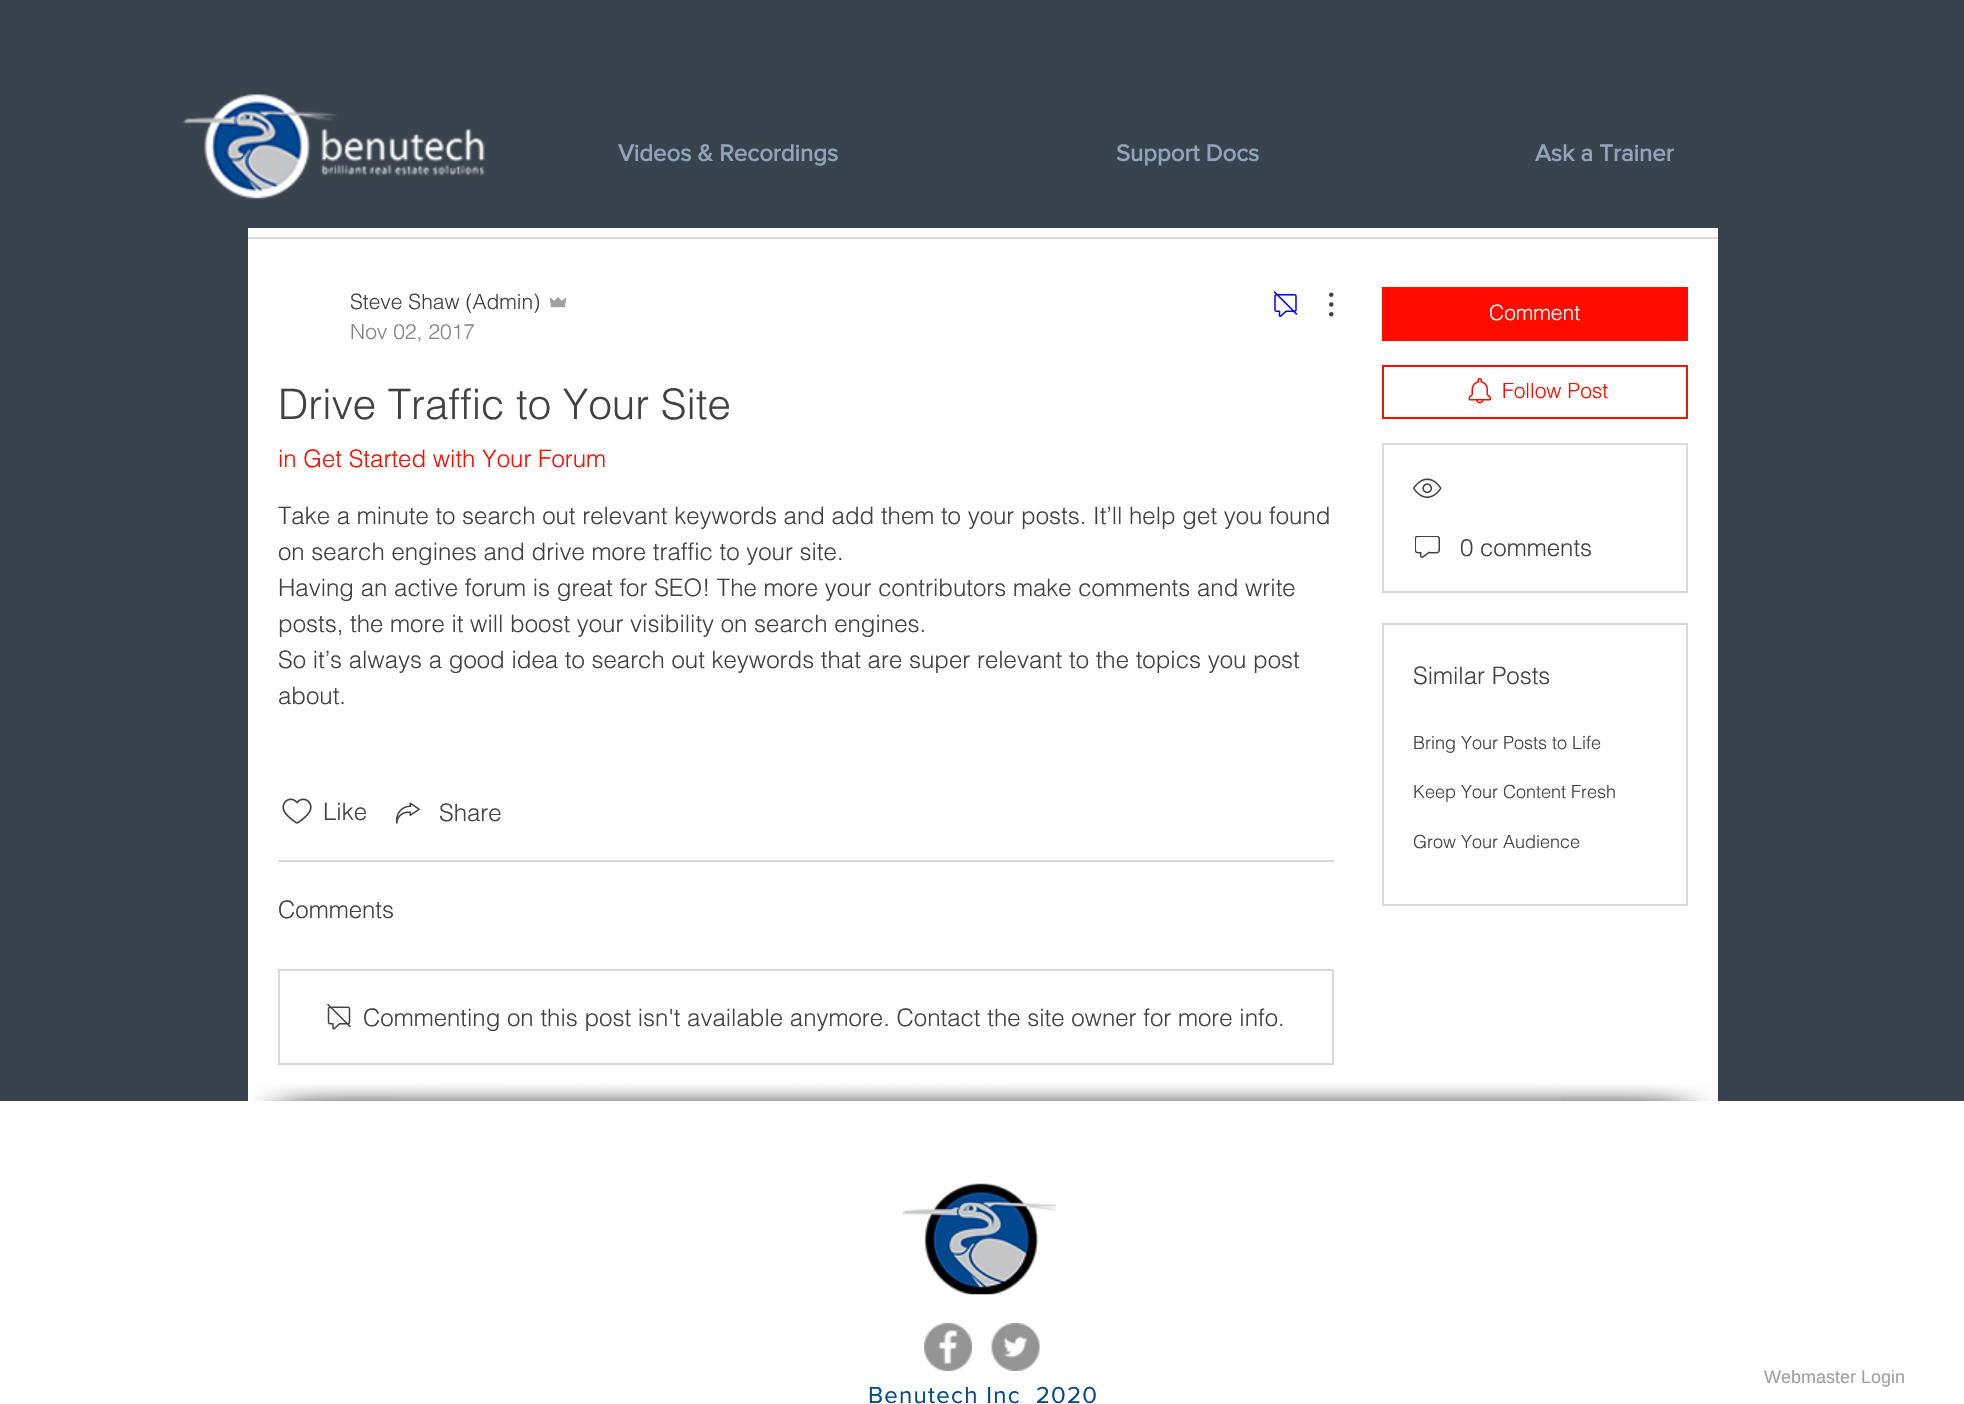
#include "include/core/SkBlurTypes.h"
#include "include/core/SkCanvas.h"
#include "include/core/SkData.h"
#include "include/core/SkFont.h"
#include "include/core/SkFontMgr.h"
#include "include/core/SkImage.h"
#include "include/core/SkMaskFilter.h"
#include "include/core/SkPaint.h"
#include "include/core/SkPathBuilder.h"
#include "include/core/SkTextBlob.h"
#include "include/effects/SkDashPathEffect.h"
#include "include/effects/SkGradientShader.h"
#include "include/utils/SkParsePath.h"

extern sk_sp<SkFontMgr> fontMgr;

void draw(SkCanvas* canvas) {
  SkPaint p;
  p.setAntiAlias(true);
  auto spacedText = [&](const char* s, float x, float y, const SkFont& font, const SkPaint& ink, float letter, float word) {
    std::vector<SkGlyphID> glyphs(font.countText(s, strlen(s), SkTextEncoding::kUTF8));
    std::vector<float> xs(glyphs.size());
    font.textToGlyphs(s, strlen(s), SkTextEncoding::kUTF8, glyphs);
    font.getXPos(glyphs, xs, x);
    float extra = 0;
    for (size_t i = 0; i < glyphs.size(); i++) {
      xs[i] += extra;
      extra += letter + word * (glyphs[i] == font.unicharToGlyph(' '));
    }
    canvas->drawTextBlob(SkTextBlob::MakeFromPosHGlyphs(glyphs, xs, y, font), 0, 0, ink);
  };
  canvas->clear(SkColorSetRGB(57, 67, 77));
  canvas->drawImageRect(SkImages::DeferredFromEncodedData(SkData::MakeFromFileName("images/1.png")), SkRect::MakeLTRB(182, 94, 485, 200), SkSamplingOptions());
  p.setColor(SK_ColorWHITE);
  canvas->drawRect(SkRect::MakeLTRB(248, 228, 1718, 1101), p);
  p.setColor(SkColorSetRGB(217, 217, 217));
  canvas->drawRect(SkRect::MakeLTRB(248, 237, 1718, 239), p);
  canvas->drawImageRect(SkImages::DeferredFromEncodedData(SkData::MakeFromFileName("images/2.png")), SkRect::MakeLTRB(549, 297, 567, 308), SkSamplingOptions());
  canvas->drawImageRect(SkImages::DeferredFromEncodedData(SkData::MakeFromFileName("images/3.png")), SkRect::MakeLTRB(1274, 291, 1298, 317), SkSamplingOptions());
  canvas->drawImageRect(SkImages::DeferredFromEncodedData(SkData::MakeFromFileName("images/4.png")), SkRect::MakeLTRB(1329, 292, 1334, 317), SkSamplingOptions());
  canvas->drawImageRect(SkImages::DeferredFromEncodedData(SkData::MakeFromFileName("images/5.png")), SkRect::MakeLTRB(282, 798, 312, 824), SkSamplingOptions());
  canvas->drawImageRect(SkImages::DeferredFromEncodedData(SkData::MakeFromFileName("images/6.png")), SkRect::MakeLTRB(396, 802, 420, 824), SkSamplingOptions());
  canvas->drawRect(SkRect::MakeLTRB(278, 860, 1334, 862), p);
  p.setStyle(SkPaint::kStroke_Style);
  p.setStrokeWidth(2);
  canvas->drawRect(SkRect::MakeLTRB(279, 970, 1333, 1064), p);
  canvas->drawImageRect(SkImages::DeferredFromEncodedData(SkData::MakeFromFileName("images/7.png")), SkRect::MakeLTRB(327, 1004, 351, 1030), SkSamplingOptions());
  p.setStyle(SkPaint::kFill_Style);
  p.setColor(SkColorSetRGB(255, 11, 0));
  canvas->drawRect(SkRect::MakeLTRB(1382, 287, 1688, 341), p);
  p.setStyle(SkPaint::kStroke_Style);
  canvas->drawRect(SkRect::MakeLTRB(1383, 366, 1687, 418), p);
  canvas->drawImageRect(SkImages::DeferredFromEncodedData(SkData::MakeFromFileName("images/8.png")), SkRect::MakeLTRB(1468, 378, 1491, 404), SkSamplingOptions());
  p.setColor(SkColorSetRGB(217, 217, 217));
  canvas->drawRect(SkRect::MakeLTRB(1383, 444, 1687, 592), p);
  canvas->drawImageRect(SkImages::DeferredFromEncodedData(SkData::MakeFromFileName("images/9.png")), SkRect::MakeLTRB(1413, 478, 1442, 498), SkSamplingOptions());
  canvas->drawImageRect(SkImages::DeferredFromEncodedData(SkData::MakeFromFileName("images/10.png")), SkRect::MakeLTRB(1415, 536, 1440, 558), SkSamplingOptions());
  canvas->drawRect(SkRect::MakeLTRB(1383, 624, 1687, 905), p);
  p.setStyle(SkPaint::kFill_Style);
  p.setColor(SK_ColorWHITE);
  canvas->drawRect(SkRect::MakeLTRB(0, 1101, 1964, 1404), p);
  canvas->drawImageRect(SkImages::DeferredFromEncodedData(SkData::MakeFromFileName("images/11.png")), SkRect::MakeLTRB(253, 1084, 398, 1101), SkSamplingOptions());
  canvas->drawImageRect(SkImages::DeferredFromEncodedData(SkData::MakeFromFileName("images/12.png")), SkRect::MakeLTRB(397, 1084, 1568, 1101), SkSamplingOptions());
  canvas->drawImageRect(SkImages::DeferredFromEncodedData(SkData::MakeFromFileName("images/13.png")), SkRect::MakeLTRB(1567, 1084, 1712, 1101), SkSamplingOptions());
  canvas->drawImageRect(SkImages::DeferredFromEncodedData(SkData::MakeFromFileName("images/14.png")), SkRect::MakeLTRB(903, 1183, 1056, 1295), SkSamplingOptions());
  canvas->drawImageRect(SkImages::DeferredFromEncodedData(SkData::MakeFromFileName("images/15.png")), SkRect::MakeLTRB(924, 1323, 972, 1371), SkSamplingOptions());
  canvas->drawImageRect(SkImages::DeferredFromEncodedData(SkData::MakeFromFileName("images/16.png")), SkRect::MakeLTRB(991, 1323, 1040, 1371), SkSamplingOptions());
  SkFont font1(fontMgr->matchFamilyStyle("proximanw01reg", SkFontStyle::Bold()), 24);
  font1.setSubpixel(true);
  p.setColor(SkColorSetRGB(145, 163, 184));
  canvas->drawString("Videos & Recordings", 618, 161, font1, p);
  canvas->drawString("Support Docs", 1116, 161, font1, p);
  canvas->drawString("Ask a Trainer", 1535, 161, font1, p);
  SkFont font2(fontMgr->matchFamilyStyle("helvetica", SkFontStyle(300, SkFontStyle::kNormal_Width, SkFontStyle::kUpright_Slant)), 21);
  font2.setSubpixel(true);
  p.setColor(SkColorSetRGB(65, 65, 65));
  canvas->drawString("Steve Shaw (Admin)", 350, 309, font2, p);
  p.setColor(SkColorSetRGB(133, 133, 133));
  canvas->drawString("Nov 02, 2017", 350, 339, font2, p);
  SkFont font3(fontMgr->matchFamilyStyle("helvetica", SkFontStyle(300, SkFontStyle::kNormal_Width, SkFontStyle::kUpright_Slant)), 42);
  font3.setSubpixel(true);
  p.setColor(SkColorSetRGB(65, 65, 65));
  canvas->drawString("Drive Traffic to Your Site", 278, 419, font3, p);
  SkFont font4(fontMgr->matchFamilyStyle("helvetica", SkFontStyle(300, SkFontStyle::kNormal_Width, SkFontStyle::kUpright_Slant)), 24);
  font4.setSubpixel(true);
  p.setColor(SkColorSetRGB(255, 11, 0));
  canvas->drawString("in Get Started with Your Forum", 278, 467, font4, p);
  p.setColor(SkColorSetRGB(65, 65, 65));
  canvas->drawString("Take a minute to search out relevant keywords and add them to your posts. It’ll help get you found", 278, 524, font4, p);
  canvas->drawString("on search engines and drive more traffic to your site.", 278, 560, font4, p);
  canvas->drawString("Having an active forum is great for SEO! The more your contributors make comments and write", 278, 596, font4, p);
  canvas->drawString("posts, the more it will boost your visibility on search engines.", 278, 632, font4, p);
  canvas->drawString("So it’s always a good idea to search out keywords that are super relevant to the topics you post", 278, 668, font4, p);
  canvas->drawString("about.", 278, 704, font4, p);
  canvas->drawString("Like", 323, 820, font4, p);
  canvas->drawString("Share", 439, 821, font4, p);
  canvas->drawString("Comments", 278, 918, font4, p);
  canvas->drawString("Commenting on this post isn't available anymore. Contact the site owner for more info.", 363, 1026, font4, p);
  p.setColor(SK_ColorWHITE);
  canvas->drawString("Comment", 1489, 320, font2, p);
  p.setColor(SkColorSetRGB(255, 11, 0));
  canvas->drawString("Follow Post", 1502, 398, font2, p);
  p.setColor(SkColorSetRGB(65, 65, 65));
  canvas->drawString("0 comments", 1460, 556, font4, p);
  canvas->drawString("Similar Posts", 1413, 684, font4, p);
  SkFont font5(fontMgr->matchFamilyStyle("helvetica", SkFontStyle(300, SkFontStyle::kNormal_Width, SkFontStyle::kUpright_Slant)), 18);
  font5.setSubpixel(true);
  canvas->drawString("Bring Your Posts to Life", 1413, 749, font5, p);
  canvas->drawString("Keep Your Content Fresh", 1413, 798, font5, p);
  canvas->drawString("Grow Your Audience", 1413, 848, font5, p);
  SkFont font6(fontMgr->matchFamilyStyle("Liberation Sans", SkFontStyle::Normal()), 18);
  font6.setSubpixel(true);
  p.setColor(SkColorSetRGB(160, 160, 159));
  canvas->drawString("Webmaster Login", 1764, 1383, font6, p);
  SkFont font7(fontMgr->matchFamilyStyle("proximanw01reg", SkFontStyle::Normal()), 24);
  font7.setSubpixel(true);
  p.setColor(SkColorSetRGB(0, 73, 144));
  spacedText("Benutech Inc  2020", 868, 1403, font7, p, 1.25f, 0);
}
